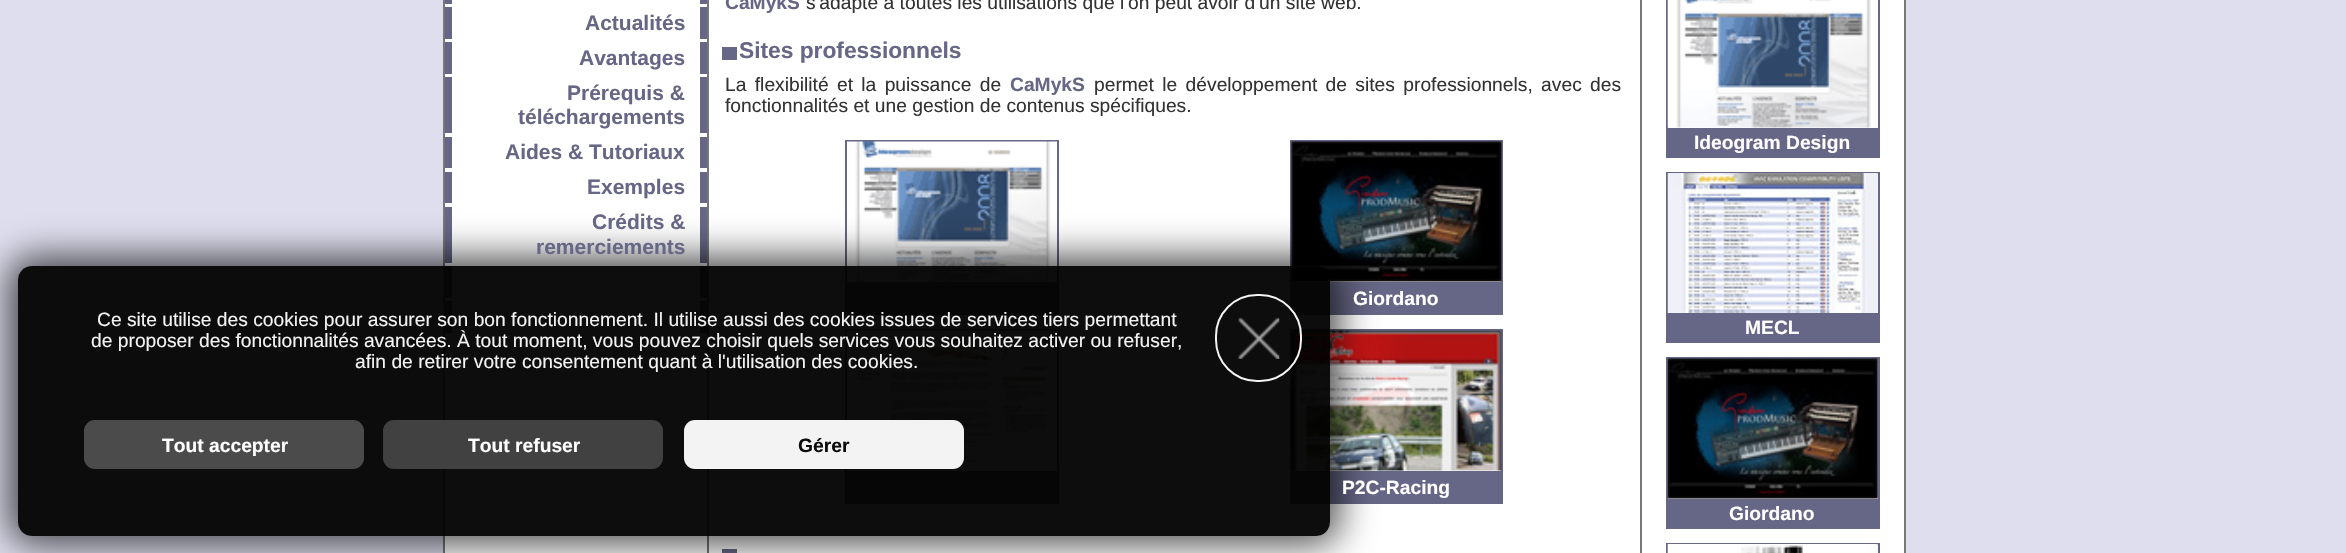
#include "include/core/SkBlurTypes.h"
#include "include/core/SkCanvas.h"
#include "include/core/SkData.h"
#include "include/core/SkFont.h"
#include "include/core/SkFontMgr.h"
#include "include/core/SkImage.h"
#include "include/core/SkMaskFilter.h"
#include "include/core/SkPaint.h"
#include "include/core/SkPathBuilder.h"
#include "include/core/SkTextBlob.h"
#include "include/effects/SkDashPathEffect.h"
#include "include/effects/SkGradientShader.h"
#include "include/utils/SkParsePath.h"

extern sk_sp<SkFontMgr> fontMgr;

void draw(SkCanvas* canvas) {
  SkPaint p;
  p.setAntiAlias(true);
  auto spacedText = [&](const char* s, float x, float y, const SkFont& font, const SkPaint& ink, float letter, float word) {
    std::vector<SkGlyphID> glyphs(font.countText(s, strlen(s), SkTextEncoding::kUTF8));
    std::vector<float> xs(glyphs.size());
    font.textToGlyphs(s, strlen(s), SkTextEncoding::kUTF8, glyphs);
    font.getXPos(glyphs, xs, x);
    float extra = 0;
    for (size_t i = 0; i < glyphs.size(); i++) {
      xs[i] += extra;
      extra += letter + word * (glyphs[i] == font.unicharToGlyph(' '));
    }
    canvas->drawTextBlob(SkTextBlob::MakeFromPosHGlyphs(glyphs, xs, y, font), 0, 0, ink);
  };
  canvas->clear(SkColorSetRGB(222, 222, 238));
  p.setStyle(SkPaint::kStroke_Style);
  p.setStrokeWidth(2);
  p.setColor(SkColorSetRGB(119, 119, 119));
  canvas->drawRect(SkRect::MakeLTRB(444, -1, 1905, 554), p);
  p.setStyle(SkPaint::kFill_Style);
  p.setColor(SK_ColorWHITE);
  canvas->drawRect(SkRect::MakeLTRB(445, 0, 1904, 553), p);
  p.setColor(SkColorSetRGB(102, 102, 134));
  canvas->drawRect(SkRect::MakeLTRB(700, 0, 707, 4), p);
  canvas->drawRect(SkRect::MakeLTRB(445, 0, 452, 4), p);
  canvas->drawRect(SkRect::MakeLTRB(700, 7, 707, 39), p);
  canvas->drawRect(SkRect::MakeLTRB(445, 7, 452, 39), p);
  canvas->drawRect(SkRect::MakeLTRB(700, 42, 707, 74), p);
  canvas->drawRect(SkRect::MakeLTRB(445, 42, 452, 74), p);
  canvas->drawRect(SkRect::MakeLTRB(700, 77, 707, 133), p);
  canvas->drawRect(SkRect::MakeLTRB(445, 77, 452, 133), p);
  canvas->drawRect(SkRect::MakeLTRB(700, 137, 707, 168), p);
  canvas->drawRect(SkRect::MakeLTRB(445, 137, 452, 168), p);
  canvas->drawRect(SkRect::MakeLTRB(700, 172, 707, 203), p);
  canvas->drawRect(SkRect::MakeLTRB(445, 172, 452, 203), p);
  canvas->drawRect(SkRect::MakeLTRB(700, 207, 707, 263), p);
  canvas->drawRect(SkRect::MakeLTRB(445, 207, 452, 263), p);
  canvas->drawRect(SkRect::MakeLTRB(700, 266, 707, 298), p);
  canvas->drawRect(SkRect::MakeLTRB(445, 266, 452, 298), p);
  canvas->drawRect(SkRect::MakeLTRB(700, 301, 707, 333), p);
  canvas->drawRect(SkRect::MakeLTRB(445, 301, 452, 333), p);
  p.setColor(SkColorSetRGB(119, 119, 119));
  canvas->drawRect(SkRect::MakeLTRB(1640, 0, 1642, 553), p);
  canvas->drawRect(SkRect::MakeLTRB(707, 0, 709, 553), p);
  p.setColor(SkColorSetRGB(102, 102, 134));
  canvas->drawRect(SkRect::MakeLTRB(722, 47, 737, 60), p);
  p.setStyle(SkPaint::kStroke_Style);
  canvas->drawRect(SkRect::MakeLTRB(846, 141, 1058, 314), p);
  canvas->drawImageRect(SkImages::DeferredFromEncodedData(SkData::MakeFromFileName("images/1.png")), SkRect::MakeLTRB(847, 141, 1057, 282), SkSamplingOptions());
  p.setStyle(SkPaint::kFill_Style);
  canvas->drawRect(SkRect::MakeLTRB(847, 282, 1057, 313), p);
  p.setStyle(SkPaint::kStroke_Style);
  canvas->drawRect(SkRect::MakeLTRB(1291, 141, 1502, 314), p);
  canvas->drawImageRect(SkImages::DeferredFromEncodedData(SkData::MakeFromFileName("images/2.png")), SkRect::MakeLTRB(1291, 141, 1502, 282), SkSamplingOptions());
  p.setStyle(SkPaint::kFill_Style);
  canvas->drawRect(SkRect::MakeLTRB(1292, 282, 1501, 313), p);
  p.setStyle(SkPaint::kStroke_Style);
  canvas->drawRect(SkRect::MakeLTRB(846, 330, 1058, 503), p);
  canvas->drawImageRect(SkImages::DeferredFromEncodedData(SkData::MakeFromFileName("images/3.png")), SkRect::MakeLTRB(847, 330, 1057, 464), SkSamplingOptions());
  p.setStyle(SkPaint::kFill_Style);
  canvas->drawRect(SkRect::MakeLTRB(847, 471, 1057, 502), p);
  p.setStyle(SkPaint::kStroke_Style);
  canvas->drawRect(SkRect::MakeLTRB(1291, 330, 1502, 503), p);
  canvas->drawImageRect(SkImages::DeferredFromEncodedData(SkData::MakeFromFileName("images/4.png")), SkRect::MakeLTRB(1291, 330, 1502, 471), SkSamplingOptions());
  p.setStyle(SkPaint::kFill_Style);
  canvas->drawRect(SkRect::MakeLTRB(1292, 471, 1501, 502), p);
  canvas->drawRect(SkRect::MakeLTRB(722, 549, 737, 553), p);
  p.setStyle(SkPaint::kStroke_Style);
  canvas->drawRect(SkRect::MakeLTRB(1667, -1, 1879, 157), p);
  canvas->drawImageRect(SkImages::DeferredFromEncodedData(SkData::MakeFromFileName("images/5.png")), SkRect::MakeLTRB(1667, 0, 1871, 128), SkSamplingOptions());
  p.setStyle(SkPaint::kFill_Style);
  canvas->drawRect(SkRect::MakeLTRB(1668, 128, 1878, 156), p);
  p.setStyle(SkPaint::kStroke_Style);
  canvas->drawRect(SkRect::MakeLTRB(1667, 173, 1879, 342), p);
  canvas->drawImageRect(SkImages::DeferredFromEncodedData(SkData::MakeFromFileName("images/6.png")), SkRect::MakeLTRB(1667, 173, 1878, 313), SkSamplingOptions());
  p.setStyle(SkPaint::kFill_Style);
  canvas->drawRect(SkRect::MakeLTRB(1668, 313, 1878, 341), p);
  p.setStyle(SkPaint::kStroke_Style);
  canvas->drawRect(SkRect::MakeLTRB(1667, 358, 1879, 528), p);
  canvas->drawImageRect(SkImages::DeferredFromEncodedData(SkData::MakeFromFileName("images/7.png")), SkRect::MakeLTRB(1667, 358, 1878, 499), SkSamplingOptions());
  p.setStyle(SkPaint::kFill_Style);
  canvas->drawRect(SkRect::MakeLTRB(1668, 499, 1878, 527), p);
  p.setStyle(SkPaint::kStroke_Style);
  canvas->drawRect(SkRect::MakeLTRB(1667, 544, 1879, 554), p);
  canvas->drawImageRect(SkImages::DeferredFromEncodedData(SkData::MakeFromFileName("images/8.png")), SkRect::MakeLTRB(1667, 544, 1878, 553), SkSamplingOptions());
  canvas->save();
  canvas->clipPath(SkPathBuilder(SkPathFillType::kEvenOdd).moveTo(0, 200).lineTo(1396, 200).lineTo(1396, 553).lineTo(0, 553).close().moveTo(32, 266).lineTo(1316, 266).cubicTo(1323.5f, 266, 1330, 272.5f, 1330, 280).lineTo(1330, 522).cubicTo(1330, 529.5f, 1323.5f, 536, 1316, 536).lineTo(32, 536).cubicTo(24.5f, 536, 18, 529.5f, 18, 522).lineTo(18, 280).cubicTo(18, 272.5f, 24.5f, 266, 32, 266).close().detach(), true);
  p.setStyle(SkPaint::kFill_Style);
  p.setColor(SkColorSetARGB(181, 0, 0, 0));
  p.setMaskFilter(SkMaskFilter::MakeBlur(kNormal_SkBlurStyle, 18.5f));
  canvas->drawRoundRect(SkRect::MakeLTRB(9, 257, 1339, 544), 23, 23, p);
  p.setMaskFilter(nullptr);
  canvas->restore();
  p.setColor(SkColorSetARGB(242, 0, 0, 0));
  canvas->drawRoundRect(SkRect::MakeLTRB(18, 266, 1330, 536), 14, 14, p);
  p.setStyle(SkPaint::kStroke_Style);
  p.setColor(SkColorSetARGB(242, 255, 255, 255));
  canvas->drawRoundRect(SkRect::MakeLTRB(1216, 295, 1301, 381), 41, 41, p);
  canvas->drawImageRect(SkImages::DeferredFromEncodedData(SkData::MakeFromFileName("images/9.png")), SkRect::MakeLTRB(1238, 317, 1280, 359), SkSamplingOptions());
  p.setStyle(SkPaint::kFill_Style);
  p.setColor(SkColorSetRGB(75, 75, 76));
  canvas->drawRoundRect(SkRect::MakeLTRB(84, 420, 364, 469), 11, 11, p);
  p.setColor(SkColorSetARGB(242, 67, 67, 67));
  canvas->drawRoundRect(SkRect::MakeLTRB(383, 420, 663, 469), 11, 11, p);
  p.setColor(SkColorSetARGB(242, 255, 255, 255));
  canvas->drawRoundRect(SkRect::MakeLTRB(684, 420, 964, 469), 11, 11, p);
  SkFont font1(fontMgr->matchFamilyStyle("Liberation Sans", SkFontStyle::Bold()), 21);
  font1.setSubpixel(true);
  p.setColor(SkColorSetRGB(102, 102, 134));
  canvas->drawString("Actualités", 585, 30, font1, p);
  canvas->drawString("Avantages", 579, 65, font1, p);
  canvas->drawString("Prérequis &", 567, 100, font1, p);
  canvas->drawString("téléchargements", 518, 124, font1, p);
  canvas->drawString("Aides & Tutoriaux", 505, 159, font1, p);
  canvas->drawString("Exemples", 587, 194, font1, p);
  canvas->drawString("Crédits &", 592, 229, font1, p);
  canvas->drawString("remerciements", 536, 254, font1, p);
  SkFont font2(fontMgr->matchFamilyStyle("Liberation Sans", SkFontStyle::Bold()), 19.25f);
  font2.setSubpixel(true);
  canvas->drawString("CaMykS", 725, 9, font2, p);
  SkFont font3(fontMgr->matchFamilyStyle("Liberation Sans", SkFontStyle::Normal()), 19.25f);
  font3.setSubpixel(true);
  p.setColor(SkColorSetRGB(51, 51, 51));
  canvas->drawString("s'adapte à toutes les utilisations que l'on peut avoir d'un site web.", 806, 9, font3, p);
  SkFont font4(fontMgr->matchFamilyStyle("Liberation Sans", SkFontStyle::Bold()), 22.75f);
  font4.setSubpixel(true);
  p.setColor(SkColorSetRGB(102, 102, 134));
  canvas->drawString("Sites professionnels", 739, 58, font4, p);
  p.setColor(SkColorSetRGB(51, 51, 51));
  spacedText("La flexibilité et la puissance de", 725, 91, font3, p, 0, 3);
  p.setColor(SkColorSetRGB(102, 102, 134));
  canvas->drawString("CaMykS", 1010, 91, font2, p);
  p.setColor(SkColorSetRGB(51, 51, 51));
  spacedText("permet le développement de sites professionnels, avec des", 1094, 91, font3, p, 0, 3);
  canvas->drawString("fonctionnalités et une gestion de contenus spécifiques.", 725, 112, font3, p);
  p.setColor(SK_ColorWHITE);
  canvas->drawString("Giordano", 1353, 305, font2, p);
  canvas->drawString("P2C-Racing", 1342, 494, font2, p);
  canvas->drawString("Ideogram Design", 1694, 149, font2, p);
  canvas->drawString("MECL", 1745, 334, font2, p);
  canvas->drawString("Giordano", 1729, 520, font2, p);
  p.setColor(SkColorSetRGB(243, 243, 243));
  canvas->drawString("Ce site utilise des cookies pour assurer son bon fonctionnement. Il utilise aussi des cookies issues de services tiers permettant", 97, 326, font3, p);
  canvas->drawString("de proposer des fonctionnalités avancées. À tout moment, vous pouvez choisir quels services vous souhaitez activer ou refuser,", 91, 347, font3, p);
  canvas->drawString("afin de retirer votre consentement quant à l'utilisation des cookies.", 355, 368, font3, p);
  p.setColor(SK_ColorWHITE);
  canvas->drawString("Tout accepter", 162, 452, font2, p);
  canvas->drawString("Tout refuser", 468, 452, font2, p);
  p.setColor(SkColorSetRGB(12, 12, 12));
  canvas->drawString("Gérer", 798, 452, font2, p);
}
